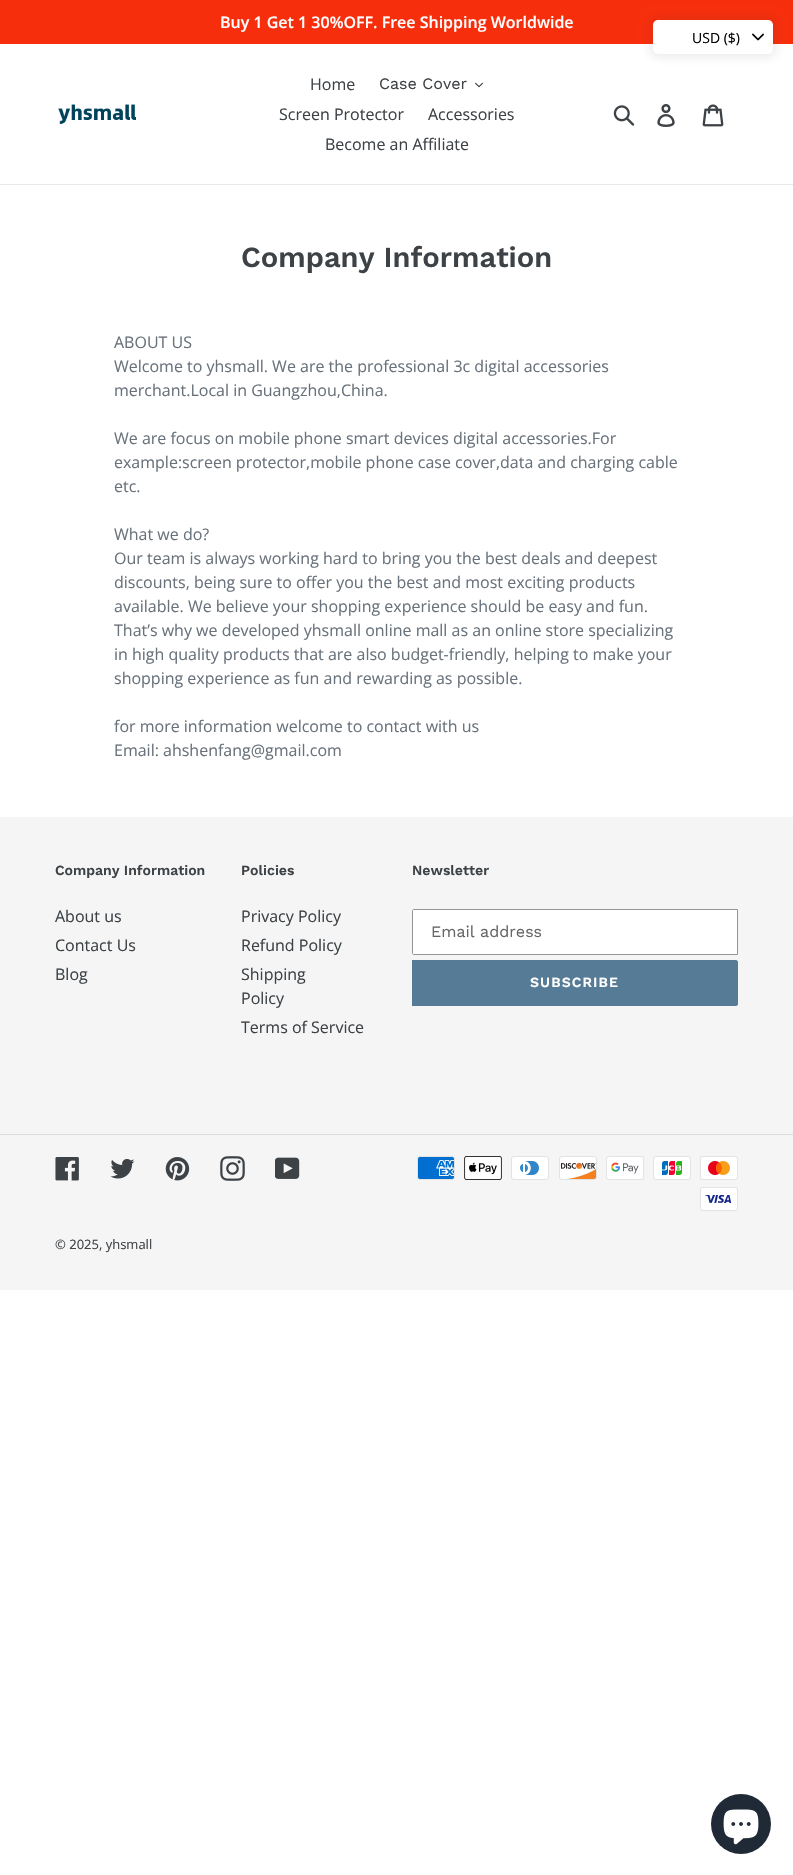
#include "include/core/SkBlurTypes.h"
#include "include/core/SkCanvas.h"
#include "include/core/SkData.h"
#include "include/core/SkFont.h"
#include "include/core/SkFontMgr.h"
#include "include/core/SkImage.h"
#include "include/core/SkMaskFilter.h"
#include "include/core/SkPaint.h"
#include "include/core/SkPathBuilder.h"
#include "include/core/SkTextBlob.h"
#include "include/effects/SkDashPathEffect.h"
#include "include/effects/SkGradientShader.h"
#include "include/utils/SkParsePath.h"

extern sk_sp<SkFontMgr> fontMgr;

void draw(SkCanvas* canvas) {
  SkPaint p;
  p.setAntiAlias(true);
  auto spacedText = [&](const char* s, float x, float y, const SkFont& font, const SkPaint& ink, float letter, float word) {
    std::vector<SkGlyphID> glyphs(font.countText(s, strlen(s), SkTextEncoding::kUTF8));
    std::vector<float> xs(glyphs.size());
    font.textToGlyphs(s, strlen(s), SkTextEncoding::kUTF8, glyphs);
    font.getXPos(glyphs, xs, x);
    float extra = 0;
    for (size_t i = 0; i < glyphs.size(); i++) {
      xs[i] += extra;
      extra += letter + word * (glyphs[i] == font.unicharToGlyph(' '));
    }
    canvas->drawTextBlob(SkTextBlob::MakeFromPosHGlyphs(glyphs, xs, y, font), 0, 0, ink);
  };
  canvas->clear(SK_ColorWHITE);
  p.setColor(SkColorSetRGB(247, 46, 12));
  canvas->drawRect(SkRect::MakeLTRB(0, 0, 793, 44), p);
  p.setColor(SkColorSetRGB(232, 233, 235));
  canvas->drawRect(SkRect::MakeLTRB(0, 184, 793, 185), p);
  canvas->drawImageRect(SkImages::DeferredFromEncodedData(SkData::MakeFromFileName("images/1.png")), SkRect::MakeLTRB(58, 104, 136, 124), SkSamplingOptions());
  canvas->drawImageRect(SkImages::DeferredFromEncodedData(SkData::MakeFromFileName("images/2.png")), SkRect::MakeLTRB(475, 82, 483, 88), SkSamplingOptions());
  canvas->drawImageRect(SkImages::DeferredFromEncodedData(SkData::MakeFromFileName("images/3.png")), SkRect::MakeLTRB(613, 105, 635, 126), SkSamplingOptions());
  canvas->drawImageRect(SkImages::DeferredFromEncodedData(SkData::MakeFromFileName("images/4.png")), SkRect::MakeLTRB(657, 104, 675, 127), SkSamplingOptions());
  canvas->drawImageRect(SkImages::DeferredFromEncodedData(SkData::MakeFromFileName("images/5.png")), SkRect::MakeLTRB(702, 104, 724, 127), SkSamplingOptions());
  p.setColor(SkColorSetARGB(23, 60, 60, 60));
  p.setMaskFilter(SkMaskFilter::MakeBlur(kNormal_SkBlurStyle, 5));
  canvas->drawRoundRect(SkRect::MakeLTRB(649, 16, 777, 58), 9, 9, p);
  p.setMaskFilter(nullptr);
  p.setColor(SK_ColorWHITE);
  canvas->drawRoundRect(SkRect::MakeLTRB(653, 20, 773, 54), 5, 5, p);
  canvas->drawImageRect(SkImages::DeferredFromEncodedData(SkData::MakeFromFileName("images/6.png")), SkRect::MakeLTRB(752, 33, 764, 41), SkSamplingOptions());
  p.setColor(SkColorSetRGB(245, 245, 245));
  canvas->drawRect(SkRect::MakeLTRB(0, 817, 793, 1290), p);
  p.setColor(SK_ColorWHITE);
  canvas->drawPath(SkPathBuilder().moveTo(414, 909.5f).lineTo(737.5f, 909.5f).lineTo(737.5f, 954.5f).lineTo(414, 954.5f).cubicTo(413, 954.5f, 412.5f, 954, 412.5f, 953).lineTo(412.5f, 911).cubicTo(412.5f, 910, 413, 909.5f, 414, 909.5f).close().detach(), p);
  p.setStyle(SkPaint::kStroke_Style);
  p.setStrokeWidth(1);
  p.setColor(SkColorSetRGB(148, 148, 148));
  canvas->drawPath(SkPathBuilder().moveTo(414, 909.5f).lineTo(737.5f, 909.5f).lineTo(737.5f, 954.5f).lineTo(414, 954.5f).cubicTo(413, 954.5f, 412.5f, 954, 412.5f, 953).lineTo(412.5f, 911).cubicTo(412.5f, 910, 413, 909.5f, 414, 909.5f).close().detach(), p);
  p.setStyle(SkPaint::kFill_Style);
  p.setColor(SkColorSetRGB(85, 123, 151));
  canvas->drawPath(SkPathBuilder().moveTo(412, 960).lineTo(736, 960).cubicTo(737, 960, 738, 961, 738, 962).lineTo(738, 1004).cubicTo(738, 1005, 737, 1006, 736, 1006).lineTo(412, 1006).close().detach(), p);
  p.setColor(SkColorSetRGB(220, 220, 220));
  canvas->drawRect(SkRect::MakeLTRB(0, 1134, 793, 1135), p);
  canvas->drawImageRect(SkImages::DeferredFromEncodedData(SkData::MakeFromFileName("images/7.png")), SkRect::MakeLTRB(55, 1157, 79, 1181), SkSamplingOptions());
  canvas->drawImageRect(SkImages::DeferredFromEncodedData(SkData::MakeFromFileName("images/8.png")), SkRect::MakeLTRB(110, 1159, 135, 1179), SkSamplingOptions());
  canvas->drawImageRect(SkImages::DeferredFromEncodedData(SkData::MakeFromFileName("images/9.png")), SkRect::MakeLTRB(165, 1157, 190, 1181), SkSamplingOptions());
  canvas->drawImageRect(SkImages::DeferredFromEncodedData(SkData::MakeFromFileName("images/10.png")), SkRect::MakeLTRB(220, 1156, 245, 1181), SkSamplingOptions());
  canvas->drawImageRect(SkImages::DeferredFromEncodedData(SkData::MakeFromFileName("images/11.png")), SkRect::MakeLTRB(275, 1157, 300, 1179), SkSamplingOptions());
  canvas->drawImageRect(SkImages::DeferredFromEncodedData(SkData::MakeFromFileName("images/12.png")), SkRect::MakeLTRB(417, 1156, 455, 1180), SkSamplingOptions());
  canvas->drawImageRect(SkImages::DeferredFromEncodedData(SkData::MakeFromFileName("images/13.png")), SkRect::MakeLTRB(464, 1156, 502, 1180), SkSamplingOptions());
  canvas->drawImageRect(SkImages::DeferredFromEncodedData(SkData::MakeFromFileName("images/14.png")), SkRect::MakeLTRB(511, 1156, 549, 1180), SkSamplingOptions());
  canvas->drawImageRect(SkImages::DeferredFromEncodedData(SkData::MakeFromFileName("images/15.png")), SkRect::MakeLTRB(559, 1156, 597, 1180), SkSamplingOptions());
  canvas->drawImageRect(SkImages::DeferredFromEncodedData(SkData::MakeFromFileName("images/16.png")), SkRect::MakeLTRB(606, 1156, 644, 1180), SkSamplingOptions());
  canvas->drawImageRect(SkImages::DeferredFromEncodedData(SkData::MakeFromFileName("images/17.png")), SkRect::MakeLTRB(653, 1156, 691, 1180), SkSamplingOptions());
  canvas->drawImageRect(SkImages::DeferredFromEncodedData(SkData::MakeFromFileName("images/18.png")), SkRect::MakeLTRB(700, 1156, 738, 1180), SkSamplingOptions());
  canvas->drawImageRect(SkImages::DeferredFromEncodedData(SkData::MakeFromFileName("images/19.png")), SkRect::MakeLTRB(700, 1187, 738, 1211), SkSamplingOptions());
  p.setColor(SkColorSetRGB(32, 42, 54));
  canvas->drawCircle(741, 1824, 30, p);
  canvas->drawImageRect(SkImages::DeferredFromEncodedData(SkData::MakeFromFileName("images/20.png")), SkRect::MakeLTRB(723, 1809, 759, 1845), SkSamplingOptions());
  SkFont font1(fontMgr->matchFamilyStyle("Open Sans", SkFontStyle(600, SkFontStyle::kNormal_Width, SkFontStyle::kUpright_Slant)), 16);
  font1.setSubpixel(true);
  p.setColor(SK_ColorWHITE);
  canvas->drawString("Buy 1 Get 1 30%OFF. Free Shipping Worldwide", 220, 28, font1, p);
  SkFont font2(fontMgr->matchFamilyStyle("Open Sans", SkFontStyle::Normal()), 16);
  font2.setSubpixel(true);
  p.setColor(SkColorSetRGB(61, 66, 70));
  canvas->drawString("Home", 310, 90, font2, p);
  SkFont font3(fontMgr->matchFamilyStyle("Work Sans", SkFontStyle::Normal()), 16);
  font3.setSubpixel(true);
  canvas->drawString("Case Cover", 379, 89, font3, p);
  canvas->drawString("Screen Protector", 279, 120, font2, p);
  canvas->drawString("Accessories", 428, 120, font2, p);
  canvas->drawString("Become an Affiliate", 325, 150, font2, p);
  SkFont font4(fontMgr->matchFamilyStyle("Open Sans", SkFontStyle::Normal()), 14);
  font4.setSubpixel(true);
  p.setColor(SK_ColorBLACK);
  canvas->drawString("USD ($)", 692, 43, font4, p);
  SkFont font5(fontMgr->matchFamilyStyle("Work Sans", SkFontStyle(600, SkFontStyle::kNormal_Width, SkFontStyle::kUpright_Slant)), 29);
  font5.setSubpixel(true);
  p.setColor(SkColorSetRGB(61, 66, 70));
  canvas->drawString("Company Information", 241, 267, font5, p);
  p.setColor(SkColorSetRGB(105, 114, 123));
  canvas->drawString("ABOUT US", 114, 348, font2, p);
  canvas->drawString("Welcome to yhsmall. We are the professional 3c digital accessories", 114, 372, font2, p);
  canvas->drawString("merchant.Local in Guangzhou,China.", 114, 396, font2, p);
  canvas->drawString("We are focus on mobile phone smart devices digital accessories.For", 114, 444, font2, p);
  canvas->drawString("example:screen protector,mobile phone case cover,data and charging cable", 114, 468, font2, p);
  canvas->drawString("etc.", 114, 492, font2, p);
  canvas->drawString("What we do?", 114, 540, font2, p);
  canvas->drawString("Our team is always working hard to bring you the best deals and deepest", 114, 564, font2, p);
  canvas->drawString("discounts, being sure to offer you the best and most exciting products", 114, 588, font2, p);
  canvas->drawString("available. We believe your shopping experience should be easy and fun.", 114, 612, font2, p);
  canvas->drawString("That’s why we developed yhsmall online mall as an online store specializing", 114, 636, font2, p);
  canvas->drawString("in high quality products that are also budget-friendly, helping to make your", 114, 660, font2, p);
  canvas->drawString("shopping experience as fun and rewarding as possible.", 114, 684, font2, p);
  canvas->drawString("for more information welcome to contact with us", 114, 732, font2, p);
  canvas->drawString("Email: ahshenfang@gmail.com", 114, 756, font2, p);
  SkFont font6(fontMgr->matchFamilyStyle("Work Sans", SkFontStyle(600, SkFontStyle::kNormal_Width, SkFontStyle::kUpright_Slant)), 14);
  font6.setSubpixel(true);
  p.setColor(SkColorSetRGB(61, 66, 70));
  canvas->drawString("Company Information", 55, 875, font6, p);
  canvas->drawString("About us", 55, 922, font2, p);
  canvas->drawString("Contact Us", 55, 951, font2, p);
  canvas->drawString("Blog", 55, 980, font2, p);
  canvas->drawString("Policies", 241, 875, font6, p);
  canvas->drawString("Privacy Policy", 241, 922, font2, p);
  canvas->drawString("Refund Policy", 241, 951, font2, p);
  canvas->drawString("Shipping", 241, 980, font2, p);
  canvas->drawString("Policy", 241, 1004, font2, p);
  canvas->drawString("Terms of Service", 241, 1033, font2, p);
  canvas->drawString("Newsletter", 412, 875, font6, p);
  p.setColor(SkColorSetRGB(102, 102, 102));
  canvas->drawString("Email address", 431, 937, font3, p);
  p.setColor(SK_ColorWHITE);
  spacedText("SUBSCRIBE", 530, 987, font6, p, 1.1f, 0);
  SkFont font7(fontMgr->matchFamilyStyle("Open Sans", SkFontStyle::Normal()), 13);
  font7.setSubpixel(true);
  p.setColor(SkColorSetRGB(61, 66, 70));
  canvas->drawString("© 2025, yhsmall", 55, 1249, font7, p);
}
